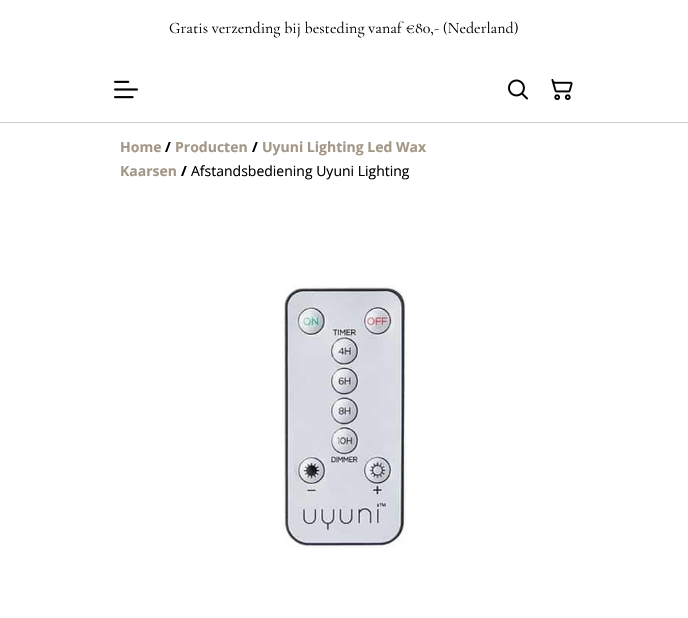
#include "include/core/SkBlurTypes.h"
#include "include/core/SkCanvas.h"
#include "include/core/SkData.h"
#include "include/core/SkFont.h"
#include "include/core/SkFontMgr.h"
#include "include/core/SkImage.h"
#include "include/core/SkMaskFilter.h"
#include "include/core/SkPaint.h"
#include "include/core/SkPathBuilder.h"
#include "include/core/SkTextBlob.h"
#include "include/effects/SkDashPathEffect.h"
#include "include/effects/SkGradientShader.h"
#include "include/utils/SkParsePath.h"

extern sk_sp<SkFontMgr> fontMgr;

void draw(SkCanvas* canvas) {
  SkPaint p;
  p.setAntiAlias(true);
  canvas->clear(SK_ColorWHITE);
  p.setColor(SkColorSetRGB(204, 204, 204));
  canvas->drawRect(SkRect::MakeLTRB(0, 122, 688, 123), p);
  canvas->drawImageRect(SkImages::DeferredFromEncodedData(SkData::MakeFromFileName("images/1.png")), SkRect::MakeLTRB(114, 80, 138, 99), SkSamplingOptions());
  canvas->drawImageRect(SkImages::DeferredFromEncodedData(SkData::MakeFromFileName("images/2.png")), SkRect::MakeLTRB(508, 79, 528, 100), SkSamplingOptions());
  canvas->drawImageRect(SkImages::DeferredFromEncodedData(SkData::MakeFromFileName("images/3.png")), SkRect::MakeLTRB(551, 78, 573, 100), SkSamplingOptions());
  canvas->drawImageRect(SkImages::DeferredFromEncodedData(SkData::MakeFromFileName("images/4.png")), SkRect::MakeLTRB(282, 285, 407, 548), SkSamplingOptions());
  SkFont font1(fontMgr->matchFamilyStyle("Cormorant Garamond", SkFontStyle::Normal()), 16);
  font1.setSubpixel(true);
  p.setColor(SK_ColorBLACK);
  canvas->drawString("Gratis verzending bij besteding vanaf €80,- (Nederland)", 169, 33, font1, p);
  SkFont font2(fontMgr->matchFamilyStyle("Open Sans", SkFontStyle::Bold()), 14);
  font2.setSubpixel(true);
  p.setColor(SkColorSetRGB(163, 151, 135));
  canvas->drawString("Home", 120, 152, font2, p);
  p.setColor(SK_ColorBLACK);
  canvas->drawString("/", 165, 152, font2, p);
  p.setColor(SkColorSetRGB(163, 151, 135));
  canvas->drawString("Producten", 175, 152, font2, p);
  p.setColor(SK_ColorBLACK);
  canvas->drawString("/", 252, 152, font2, p);
  p.setColor(SkColorSetRGB(163, 151, 135));
  canvas->drawString("Uyuni Lighting Led Wax", 262, 152, font2, p);
  canvas->drawString("Kaarsen", 120, 176, font2, p);
  p.setColor(SK_ColorBLACK);
  canvas->drawString("/", 181, 176, font2, p);
  SkFont font3(fontMgr->matchFamilyStyle("Open Sans", SkFontStyle::Normal()), 14);
  font3.setSubpixel(true);
  canvas->drawString("Afstandsbediening Uyuni Lighting", 191, 176, font3, p);
}
